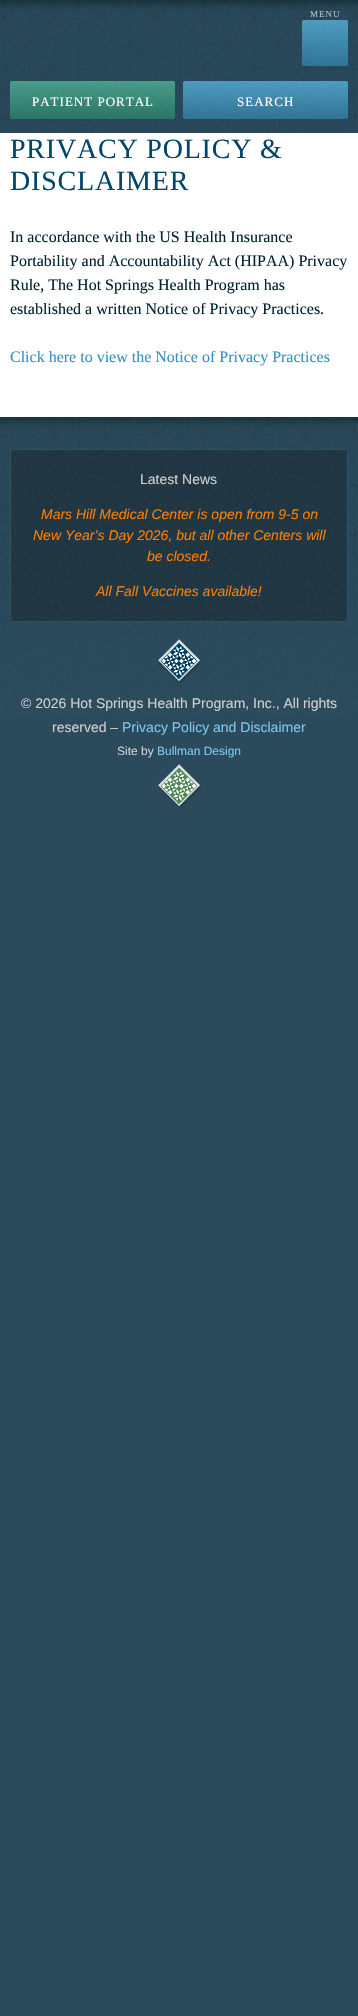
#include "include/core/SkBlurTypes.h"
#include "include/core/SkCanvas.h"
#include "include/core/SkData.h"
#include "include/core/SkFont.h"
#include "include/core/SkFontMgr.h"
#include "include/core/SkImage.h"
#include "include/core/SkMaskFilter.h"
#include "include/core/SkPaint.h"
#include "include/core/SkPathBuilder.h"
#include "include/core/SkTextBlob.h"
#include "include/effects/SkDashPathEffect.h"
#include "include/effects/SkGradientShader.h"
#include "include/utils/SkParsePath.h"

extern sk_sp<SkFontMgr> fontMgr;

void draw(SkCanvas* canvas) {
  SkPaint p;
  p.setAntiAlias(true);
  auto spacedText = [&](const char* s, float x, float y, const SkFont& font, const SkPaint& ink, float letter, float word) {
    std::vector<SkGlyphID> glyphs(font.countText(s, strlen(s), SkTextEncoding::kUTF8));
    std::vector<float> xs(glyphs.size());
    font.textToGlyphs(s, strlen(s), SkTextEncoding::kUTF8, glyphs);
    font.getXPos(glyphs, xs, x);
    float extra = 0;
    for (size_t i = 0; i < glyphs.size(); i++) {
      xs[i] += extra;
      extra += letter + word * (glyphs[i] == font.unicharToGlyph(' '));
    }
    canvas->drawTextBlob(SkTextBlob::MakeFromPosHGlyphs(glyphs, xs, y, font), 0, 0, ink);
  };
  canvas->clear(SkColorSetRGB(43, 74, 92));
  canvas->drawImageRect(SkImages::DeferredFromEncodedData(SkData::MakeFromFileName("images/2.png")), SkRect::MakeLTRB(0, 0, 358, 133), SkSamplingOptions());
  p.setColor(SkColorSetRGB(58, 145, 187));
  canvas->drawRoundRect(SkRect::MakeLTRB(302, 20, 348, 66), 2, 2, p);
  canvas->drawImageRect(SkImages::DeferredFromEncodedData(SkData::MakeFromFileName("images/1.png")), SkRect::MakeLTRB(302, 20, 348, 66), SkSamplingOptions());
  p.setColor(SkColorSetRGB(51, 146, 127));
  canvas->drawRoundRect(SkRect::MakeLTRB(10, 81, 175, 119), 2, 2, p);
  canvas->drawImageRect(SkImages::DeferredFromEncodedData(SkData::MakeFromFileName("images/3.png")), SkRect::MakeLTRB(10, 81, 175, 119), SkSamplingOptions());
  p.setColor(SkColorSetRGB(58, 145, 187));
  canvas->drawRoundRect(SkRect::MakeLTRB(183, 81, 348, 119), 2, 2, p);
  canvas->drawImageRect(SkImages::DeferredFromEncodedData(SkData::MakeFromFileName("images/4.png")), SkRect::MakeLTRB(183, 81, 348, 119), SkSamplingOptions());
  p.setColor(SK_ColorWHITE);
  canvas->drawRect(SkRect::MakeLTRB(0, 133, 358, 417), p);
  canvas->drawImageRect(SkImages::DeferredFromEncodedData(SkData::MakeFromFileName("images/5.png")), SkRect::MakeLTRB(0, 417, 358, 717), SkSamplingOptions());
  p.setColor(SkColorSetRGB(0, 30, 46));
  canvas->drawRoundRect(SkRect::MakeLTRB(10, 449, 348, 622), 3, 3, p);
  canvas->drawImageRect(SkImages::DeferredFromEncodedData(SkData::MakeFromFileName("images/6.png")), SkRect::MakeLTRB(10, 449, 348, 622), SkSamplingOptions());
  p.setStyle(SkPaint::kStroke_Style);
  p.setStrokeWidth(1);
  p.setColor(SkColorSetRGB(48, 81, 97));
  canvas->drawRoundRect(SkRect::MakeLTRB(10.5f, 449.5f, 347.5f, 621.5f), 2.5f, 2.5f, p);
  canvas->drawImageRect(SkImages::DeferredFromEncodedData(SkData::MakeFromFileName("images/7.png")), SkRect::MakeLTRB(158, 639, 201, 683), SkSamplingOptions());
  canvas->drawImageRect(SkImages::DeferredFromEncodedData(SkData::MakeFromFileName("images/8.png")), SkRect::MakeLTRB(158, 764, 201, 808), SkSamplingOptions());
  SkFont font1(fontMgr->matchFamilyStyle("Liberation Serif", SkFontStyle::Normal()), 9);
  font1.setSubpixel(true);
  p.setStyle(SkPaint::kFill_Style);
  p.setColor(SkColorSetRGB(166, 190, 202));
  spacedText("MENU", 310, 17, font1, p, 1, 0);
  SkFont font2(fontMgr->matchFamilyStyle("Liberation Serif", SkFontStyle::Normal()), 13);
  font2.setSubpixel(true);
  p.setColor(SK_ColorWHITE);
  spacedText("PATIENT PORTAL", 32, 106, font2, p, 1, 0);
  spacedText("SEARCH", 237, 106, font2, p, 1, 0);
  SkFont font3(fontMgr->matchFamilyStyle("Liberation Serif", SkFontStyle::Normal()), 28);
  font3.setSubpixel(true);
  p.setColor(SkColorSetRGB(0, 70, 105));
  spacedText("PRIVACY POLICY &", 10, 158, font3, p, 0.8f, 0);
  spacedText("DISCLAIMER", 10, 190, font3, p, 0.8f, 0);
  SkFont font4(fontMgr->matchFamilyStyle("Liberation Serif", SkFontStyle::Normal()), 16);
  font4.setSubpixel(true);
  p.setColor(SkColorSetRGB(0, 33, 49));
  canvas->drawString("In accordance with the US Health Insurance", 10, 242, font4, p);
  canvas->drawString("Portability and Accountability Act (HIPAA) Privacy", 10, 266, font4, p);
  canvas->drawString("Rule, The Hot Springs Health Program has", 10, 290, font4, p);
  canvas->drawString("established a written Notice of Privacy Practices.", 10, 314, font4, p);
  p.setColor(SkColorSetRGB(52, 144, 192));
  canvas->drawString("Click here to view the Notice of Privacy Practices", 10, 362, font4, p);
  SkFont font5(fontMgr->matchFamilyStyle("Liberation Sans", SkFontStyle::Normal()), 14);
  font5.setSubpixel(true);
  p.setColor(SkColorSetRGB(207, 207, 207));
  canvas->drawString("Latest News", 140, 484, font5, p);
  SkFont font6(fontMgr->matchFamilyStyle("Liberation Sans", SkFontStyle::Italic()), 14);
  font6.setSubpixel(true);
  p.setColor(SkColorSetRGB(255, 125, 0));
  canvas->drawString("Mars Hill Medical Center is open from 9-5 on", 41, 519, font6, p);
  canvas->drawString("New Year’s Day 2026, but all other Centers will", 33, 540, font6, p);
  canvas->drawString("be closed.", 147, 561, font6, p);
  canvas->drawString("All Fall Vaccines available!", 96, 596, font6, p);
  p.setColor(SkColorSetRGB(207, 207, 207));
  canvas->drawString("© 2026 Hot Springs Health Program, Inc., All rights", 21, 708, font5, p);
  canvas->drawString("reserved –", 52, 732, font5, p);
  p.setColor(SkColorSetRGB(123, 197, 236));
  canvas->drawString("Privacy Policy and Disclaimer", 122, 732, font5, p);
  SkFont font7(fontMgr->matchFamilyStyle("Liberation Sans", SkFontStyle::Normal()), 12);
  font7.setSubpixel(true);
  p.setColor(SkColorSetRGB(207, 207, 207));
  canvas->drawString("Site by", 117, 755, font7, p);
  p.setColor(SkColorSetRGB(123, 197, 236));
  canvas->drawString("Bullman Design", 157, 755, font7, p);
}
